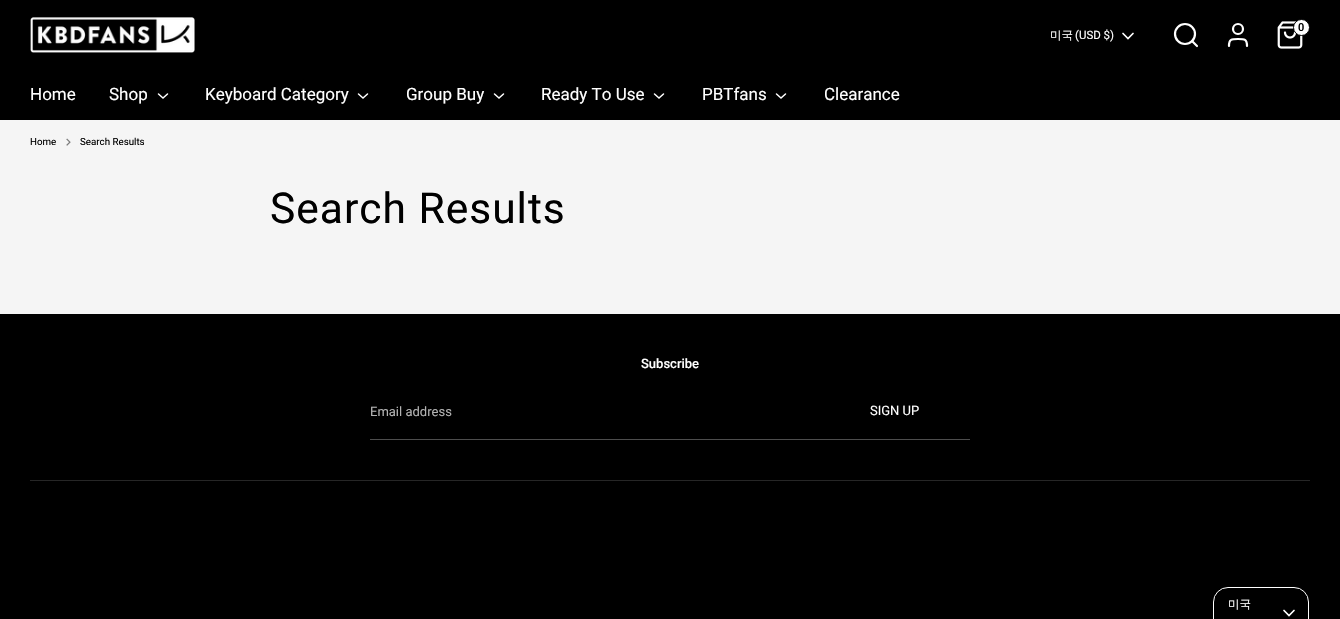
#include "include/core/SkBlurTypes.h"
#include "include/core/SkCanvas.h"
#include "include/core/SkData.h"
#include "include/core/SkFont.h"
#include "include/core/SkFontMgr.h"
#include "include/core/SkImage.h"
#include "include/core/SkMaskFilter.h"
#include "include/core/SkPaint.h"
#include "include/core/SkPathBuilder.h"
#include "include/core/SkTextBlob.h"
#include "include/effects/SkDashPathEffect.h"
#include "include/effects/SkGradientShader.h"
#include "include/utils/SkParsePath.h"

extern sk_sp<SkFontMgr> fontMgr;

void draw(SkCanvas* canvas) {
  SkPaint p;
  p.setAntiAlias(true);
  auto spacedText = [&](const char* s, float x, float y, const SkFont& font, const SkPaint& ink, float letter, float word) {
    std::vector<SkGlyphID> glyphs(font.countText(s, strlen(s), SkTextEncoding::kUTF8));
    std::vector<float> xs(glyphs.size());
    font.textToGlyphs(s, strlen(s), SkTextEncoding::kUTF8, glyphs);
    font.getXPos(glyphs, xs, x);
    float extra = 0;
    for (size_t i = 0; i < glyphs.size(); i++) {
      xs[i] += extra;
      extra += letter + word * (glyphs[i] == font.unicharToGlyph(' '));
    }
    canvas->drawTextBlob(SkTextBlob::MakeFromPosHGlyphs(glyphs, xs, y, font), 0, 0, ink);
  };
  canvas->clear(SkColorSetRGB(245, 245, 245));
  p.setColor(SK_ColorBLACK);
  canvas->drawRect(SkRect::MakeLTRB(0, 0, 1340, 120), p);
  canvas->drawImageRect(SkImages::DeferredFromEncodedData(SkData::MakeFromFileName("images/1.png")), SkRect::MakeLTRB(30, 17, 195, 53), SkSamplingOptions());
  p.setStyle(SkPaint::kStroke_Style);
  p.setStrokeWidth(2.2f);
  p.setColor(SK_ColorWHITE);
  canvas->drawCircle(1185, 34, 10, p);
  p.setStrokeCap(SkPaint::kRound_Cap);
  p.setStrokeJoin(SkPaint::kRound_Join);
  canvas->drawPath(SkPathBuilder().moveTo(1197, 46).lineTo(1192, 41).moveTo(1247, 46).cubicTo(1247, 39, 1244.5f, 39, 1238, 39).cubicTo(1231.5f, 39, 1229, 39, 1229, 46).detach(), p);
  p.setStrokeCap(SkPaint::kButt_Cap);
  p.setStrokeJoin(SkPaint::kMiter_Join);
  canvas->drawCircle(1238, 29, 5, p);
  canvas->drawImageRect(SkImages::DeferredFromEncodedData(SkData::MakeFromFileName("images/2.png")), SkRect::MakeLTRB(1277, 21, 1303, 49), SkSamplingOptions());
  p.setStyle(SkPaint::kFill_Style);
  canvas->drawCircle(1301.5f, 27.5f, 8, p);
  p.setStyle(SkPaint::kStroke_Style);
  p.setStrokeWidth(1);
  p.setColor(SK_ColorBLACK);
  canvas->drawCircle(1301.5f, 27.5f, 8, p);
  p.setStrokeWidth(1.7f);
  p.setStrokeCap(SkPaint::kRound_Cap);
  p.setColor(SK_ColorWHITE);
  canvas->drawPath(SkPathBuilder().moveTo(1123, 33.5f).lineTo(1128, 38.5f).lineTo(1133, 33.5f).detach(), p);
  p.setStrokeWidth(1.5f);
  canvas->drawPath(SkPathBuilder().moveTo(158.5f, 94).lineTo(163, 98).lineTo(167.5f, 94).detach(), p);
  canvas->drawPath(SkPathBuilder().moveTo(358.5f, 94).lineTo(363, 98).lineTo(367.5f, 94).detach(), p);
  canvas->drawPath(SkPathBuilder().moveTo(494.5f, 94).lineTo(499, 98).lineTo(503.5f, 94).detach(), p);
  canvas->drawPath(SkPathBuilder().moveTo(654.5f, 94).lineTo(659, 98).lineTo(663.5f, 94).detach(), p);
  canvas->drawPath(SkPathBuilder().moveTo(776.5f, 94).lineTo(781, 98).lineTo(785.5f, 94).detach(), p);
  canvas->drawImageRect(SkImages::DeferredFromEncodedData(SkData::MakeFromFileName("images/3.png")), SkRect::MakeLTRB(66, 138, 71, 146), SkSamplingOptions());
  p.setStyle(SkPaint::kFill_Style);
  p.setColor(SK_ColorBLACK);
  canvas->drawRect(SkRect::MakeLTRB(0, 314, 1340, 619), p);
  p.setColor(SkColorSetRGB(77, 77, 77));
  canvas->drawRect(SkRect::MakeLTRB(370, 439, 970, 440), p);
  p.setColor(SkColorSetRGB(38, 38, 38));
  canvas->drawRect(SkRect::MakeLTRB(30, 480, 1310, 481), p);
  p.setStyle(SkPaint::kStroke_Style);
  p.setStrokeWidth(1);
  p.setStrokeCap(SkPaint::kButt_Cap);
  p.setColor(SK_ColorWHITE);
  canvas->drawRoundRect(SkRect::MakeLTRB(1213.5f, 587.5f, 1308.5f, 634.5f), 14.5f, 14.5f, p);
  p.setStrokeWidth(1.7f);
  p.setStrokeCap(SkPaint::kRound_Cap);
  canvas->drawPath(SkPathBuilder().moveTo(1284, 610.5f).lineTo(1289, 615.5f).lineTo(1294, 610.5f).detach(), p);
  SkFont font1(fontMgr->matchFamilyStyle("Roboto", SkFontStyle(500, SkFontStyle::kNormal_Width, SkFontStyle::kUpright_Slant)), 11);
  font1.setSubpixel(true);
  p.setStyle(SkPaint::kFill_Style);
  p.setColor(SK_ColorBLACK);
  canvas->drawString("0", 1298, 31, font1, p);
  SkFont font2(fontMgr->matchFamilyStyle("WenQuanYi Zen Hei", SkFontStyle(500, SkFontStyle::kNormal_Width, SkFontStyle::kUpright_Slant)), 11.5f);
  font2.setSubpixel(true);
  p.setColor(SK_ColorWHITE);
  canvas->drawString("미국", 1050, 39, font2, p);
  SkFont font3(fontMgr->matchFamilyStyle("Roboto", SkFontStyle::Normal()), 11.5f);
  font3.setSubpixel(true);
  canvas->drawString("(USD $)", 1075, 39, font3, p);
  SkFont font4(fontMgr->matchFamilyStyle("Roboto", SkFontStyle::Normal()), 17);
  font4.setSubpixel(true);
  canvas->drawString("Home", 30, 100, font4, p);
  canvas->drawString("Shop", 109, 100, font4, p);
  canvas->drawString("Keyboard Category", 205, 100, font4, p);
  canvas->drawString("Group Buy", 406, 100, font4, p);
  canvas->drawString("Ready To Use", 541, 100, font4, p);
  canvas->drawString("PBTfans", 702, 100, font4, p);
  canvas->drawString("Clearance", 824, 100, font4, p);
  SkFont font5(fontMgr->matchFamilyStyle("Roboto", SkFontStyle::Normal()), 9.75f);
  font5.setSubpixel(true);
  p.setColor(SK_ColorBLACK);
  canvas->drawString("Home", 30, 145, font5, p);
  canvas->drawString("Search Results", 80, 145, font5, p);
  SkFont font6(fontMgr->matchFamilyStyle("Roboto", SkFontStyle::Normal()), 42.5f);
  font6.setSubpixel(true);
  spacedText("Search Results", 270, 223, font6, p, 1, 0);
  SkFont font7(fontMgr->matchFamilyStyle("Roboto", SkFontStyle(500, SkFontStyle::kNormal_Width, SkFontStyle::kUpright_Slant)), 13);
  font7.setSubpixel(true);
  p.setColor(SK_ColorWHITE);
  canvas->drawString("Subscribe", 641, 368, font7, p);
  SkFont font8(fontMgr->matchFamilyStyle("Roboto", SkFontStyle::Normal()), 13);
  font8.setSubpixel(true);
  p.setColor(SkColorSetRGB(179, 179, 179));
  canvas->drawString("Email address", 370, 416, font8, p);
  p.setColor(SK_ColorWHITE);
  canvas->drawString("SIGN UP", 870, 415, font8, p);
  canvas->drawString("미국", 1228, 608, font2, p);
}
